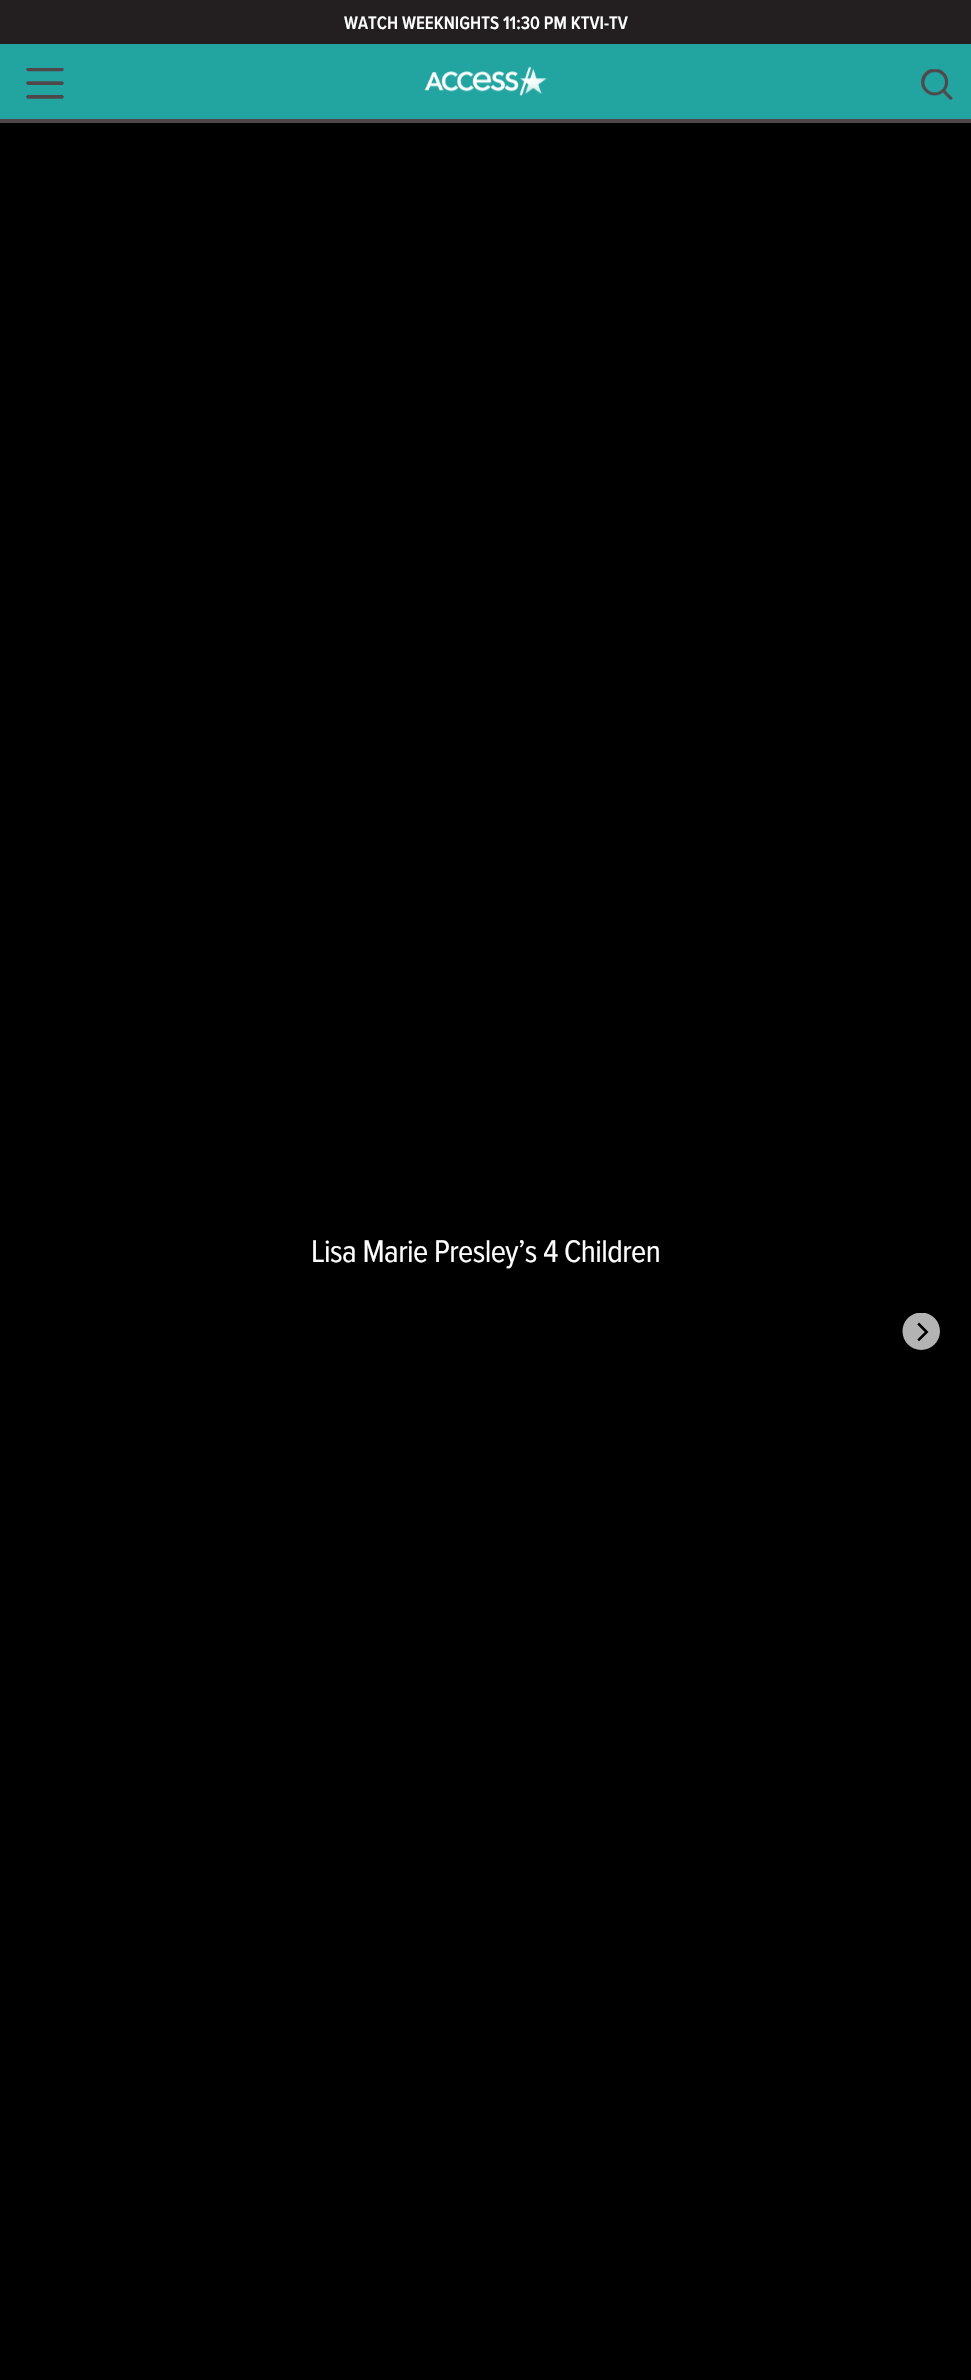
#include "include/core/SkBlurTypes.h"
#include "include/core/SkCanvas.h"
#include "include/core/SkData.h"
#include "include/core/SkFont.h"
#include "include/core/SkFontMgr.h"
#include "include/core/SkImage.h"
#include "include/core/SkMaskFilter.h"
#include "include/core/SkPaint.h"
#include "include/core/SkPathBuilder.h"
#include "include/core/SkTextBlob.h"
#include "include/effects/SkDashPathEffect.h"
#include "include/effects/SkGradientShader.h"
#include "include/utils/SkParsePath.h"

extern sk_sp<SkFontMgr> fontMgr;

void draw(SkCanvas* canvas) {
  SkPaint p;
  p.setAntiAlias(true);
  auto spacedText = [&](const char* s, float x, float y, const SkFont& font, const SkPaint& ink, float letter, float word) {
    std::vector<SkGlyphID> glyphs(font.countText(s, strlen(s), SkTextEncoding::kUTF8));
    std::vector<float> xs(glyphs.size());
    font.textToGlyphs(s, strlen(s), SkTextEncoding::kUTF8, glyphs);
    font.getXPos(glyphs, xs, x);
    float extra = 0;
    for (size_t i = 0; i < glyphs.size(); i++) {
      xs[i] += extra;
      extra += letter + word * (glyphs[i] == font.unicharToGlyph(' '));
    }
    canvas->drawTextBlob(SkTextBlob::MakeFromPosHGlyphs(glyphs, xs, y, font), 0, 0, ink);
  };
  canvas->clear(SK_ColorBLACK);
  p.setColor(SkColorSetRGB(35, 31, 32));
  canvas->drawRect(SkRect::MakeLTRB(0, 0, 971, 44), p);
  p.setColor(SkColorSetRGB(34, 165, 161));
  canvas->drawRect(SkRect::MakeLTRB(0, 44, 971, 119), p);
  canvas->drawImageRect(SkImages::DeferredFromEncodedData(SkData::MakeFromFileName("images/1.png")), SkRect::MakeLTRB(26, 68, 64, 99), SkSamplingOptions());
  canvas->drawImageRect(SkImages::DeferredFromEncodedData(SkData::MakeFromFileName("images/2.png")), SkRect::MakeLTRB(424, 66, 547, 96), SkSamplingOptions());
  canvas->drawImageRect(SkImages::DeferredFromEncodedData(SkData::MakeFromFileName("images/3.png")), SkRect::MakeLTRB(921, 69, 953, 100), SkSamplingOptions());
  p.setColor(SkColorSetRGB(79, 71, 74));
  canvas->drawRect(SkRect::MakeLTRB(0, 119, 971, 123), p);
  canvas->drawImageRect(SkImages::DeferredFromEncodedData(SkData::MakeFromFileName("images/4.png")), SkRect::MakeLTRB(902, 1313, 940, 1350), SkSamplingOptions());
  SkFont font1(fontMgr->matchFamilyStyle("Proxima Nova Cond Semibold", SkFontStyle(600, SkFontStyle::kNormal_Width, SkFontStyle::kUpright_Slant)), 18.75f);
  font1.setSubpixel(true);
  p.setColor(SK_ColorWHITE);
  canvas->drawString("WATCH WEEKNIGHTS 11:30 PM KTVI-TV", 344, 29, font1, p);
  SkFont font2(fontMgr->matchFamilyStyle("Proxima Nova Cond", SkFontStyle::Normal()), 32.5f);
  font2.setSubpixel(true);
  spacedText("Lisa Marie Presley’s 4 Children", 311, 1262, font2, p, -0.6f, 0);
}
